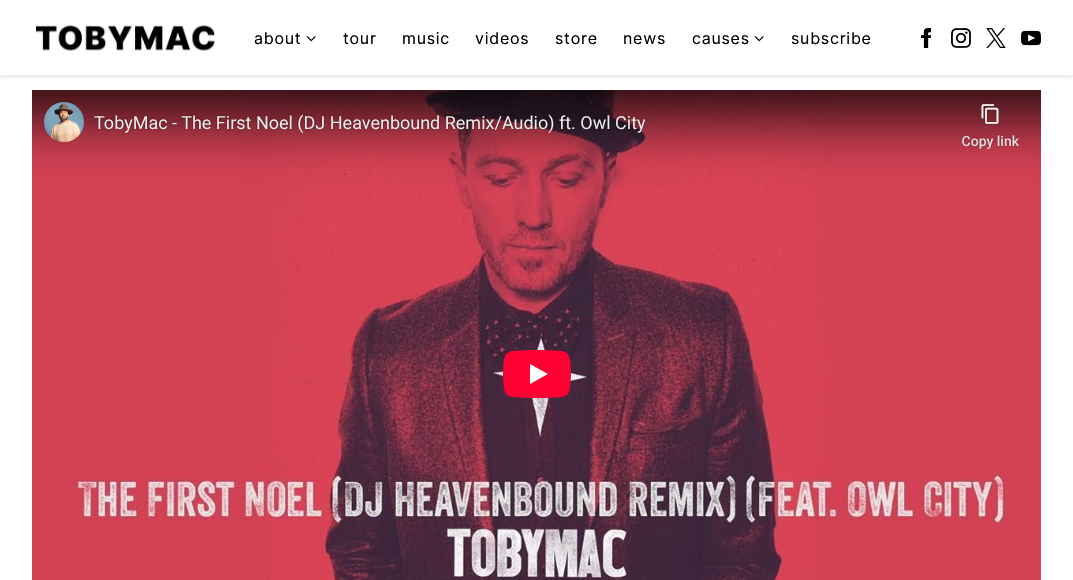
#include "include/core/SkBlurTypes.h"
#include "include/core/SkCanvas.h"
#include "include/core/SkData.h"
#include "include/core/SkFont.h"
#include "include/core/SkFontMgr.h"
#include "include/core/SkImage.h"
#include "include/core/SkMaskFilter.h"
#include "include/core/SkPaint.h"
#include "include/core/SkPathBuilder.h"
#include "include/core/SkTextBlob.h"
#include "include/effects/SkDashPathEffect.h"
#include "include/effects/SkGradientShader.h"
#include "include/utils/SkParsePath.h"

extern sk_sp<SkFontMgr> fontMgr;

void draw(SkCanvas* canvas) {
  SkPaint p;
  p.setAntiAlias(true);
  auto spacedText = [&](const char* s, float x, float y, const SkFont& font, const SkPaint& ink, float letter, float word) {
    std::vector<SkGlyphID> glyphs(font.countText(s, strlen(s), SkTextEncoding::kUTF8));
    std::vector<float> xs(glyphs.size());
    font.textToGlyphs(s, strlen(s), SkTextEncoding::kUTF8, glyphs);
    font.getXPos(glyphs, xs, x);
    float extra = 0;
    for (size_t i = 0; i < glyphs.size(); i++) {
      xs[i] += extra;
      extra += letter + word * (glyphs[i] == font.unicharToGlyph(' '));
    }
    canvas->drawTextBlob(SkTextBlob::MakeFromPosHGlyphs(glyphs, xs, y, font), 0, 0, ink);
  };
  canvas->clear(SK_ColorWHITE);
  p.setColor(SkColorSetARGB(26, 0, 0, 0));
  p.setMaskFilter(SkMaskFilter::MakeBlur(kNormal_SkBlurStyle, 2));
  canvas->drawRect(SkRect::MakeLTRB(0, 2, 1073, 77), p);
  p.setMaskFilter(nullptr);
  p.setColor(SK_ColorWHITE);
  canvas->drawRect(SkRect::MakeLTRB(0, 0, 1073, 75), p);
  canvas->drawImageRect(SkImages::DeferredFromEncodedData(SkData::MakeFromFileName("images/1.png")), SkRect::MakeLTRB(36, 25, 215, 52), SkSamplingOptions());
  canvas->drawImageRect(SkImages::DeferredFromEncodedData(SkData::MakeFromFileName("images/2.png")), SkRect::MakeLTRB(306, 36, 316, 42), SkSamplingOptions());
  canvas->drawImageRect(SkImages::DeferredFromEncodedData(SkData::MakeFromFileName("images/2.png")), SkRect::MakeLTRB(754, 36, 764, 42), SkSamplingOptions());
  canvas->drawImageRect(SkImages::DeferredFromEncodedData(SkData::MakeFromFileName("images/3.png")), SkRect::MakeLTRB(921, 28, 931, 48), SkSamplingOptions());
  canvas->drawImageRect(SkImages::DeferredFromEncodedData(SkData::MakeFromFileName("images/4.png")), SkRect::MakeLTRB(951, 28, 971, 48), SkSamplingOptions());
  canvas->drawImageRect(SkImages::DeferredFromEncodedData(SkData::MakeFromFileName("images/5.png")), SkRect::MakeLTRB(986, 28, 1006, 48), SkSamplingOptions());
  canvas->drawImageRect(SkImages::DeferredFromEncodedData(SkData::MakeFromFileName("images/6.png")), SkRect::MakeLTRB(1021, 30, 1041, 46), SkSamplingOptions());
  canvas->drawImageRect(SkImages::DeferredFromEncodedData(SkData::MakeFromFileName("images/7.png")), SkRect::MakeLTRB(32, 90, 1041, 580), SkSamplingOptions());
  SkFont font1(fontMgr->matchFamilyStyle("Inter", SkFontStyle::Normal()), 16);
  font1.setSubpixel(true);
  p.setColor(SK_ColorBLACK);
  spacedText("about", 254, 44, font1, p, 0.75f, 0);
  spacedText("tour", 343, 44, font1, p, 0.75f, 0);
  spacedText("music", 402, 44, font1, p, 0.75f, 0);
  spacedText("videos", 475, 44, font1, p, 0.75f, 0);
  spacedText("store", 555, 44, font1, p, 0.75f, 0);
  spacedText("news", 623, 44, font1, p, 0.75f, 0);
  spacedText("causes", 692, 44, font1, p, 0.75f, 0);
  spacedText("subscribe", 791, 44, font1, p, 0.75f, 0);
}
